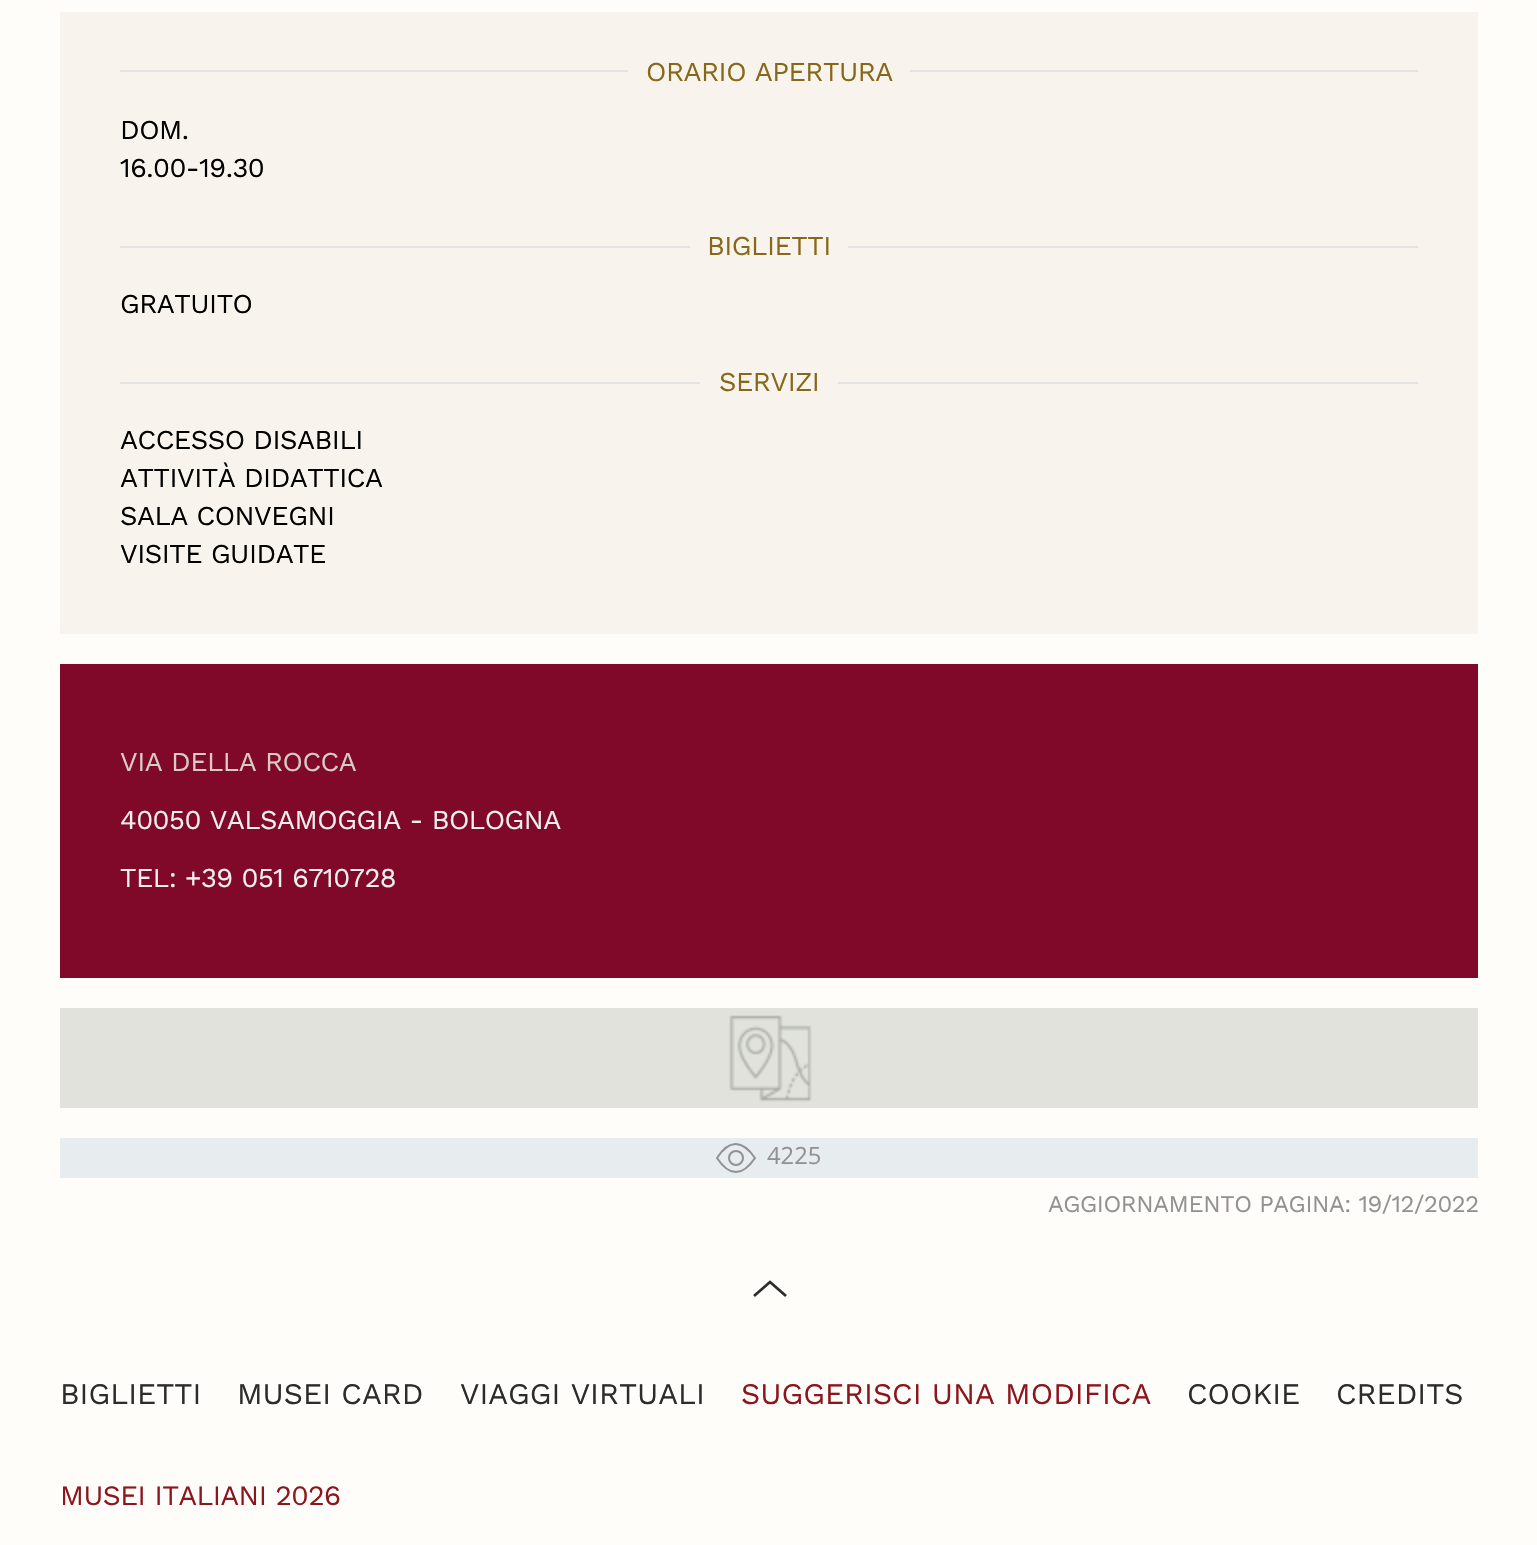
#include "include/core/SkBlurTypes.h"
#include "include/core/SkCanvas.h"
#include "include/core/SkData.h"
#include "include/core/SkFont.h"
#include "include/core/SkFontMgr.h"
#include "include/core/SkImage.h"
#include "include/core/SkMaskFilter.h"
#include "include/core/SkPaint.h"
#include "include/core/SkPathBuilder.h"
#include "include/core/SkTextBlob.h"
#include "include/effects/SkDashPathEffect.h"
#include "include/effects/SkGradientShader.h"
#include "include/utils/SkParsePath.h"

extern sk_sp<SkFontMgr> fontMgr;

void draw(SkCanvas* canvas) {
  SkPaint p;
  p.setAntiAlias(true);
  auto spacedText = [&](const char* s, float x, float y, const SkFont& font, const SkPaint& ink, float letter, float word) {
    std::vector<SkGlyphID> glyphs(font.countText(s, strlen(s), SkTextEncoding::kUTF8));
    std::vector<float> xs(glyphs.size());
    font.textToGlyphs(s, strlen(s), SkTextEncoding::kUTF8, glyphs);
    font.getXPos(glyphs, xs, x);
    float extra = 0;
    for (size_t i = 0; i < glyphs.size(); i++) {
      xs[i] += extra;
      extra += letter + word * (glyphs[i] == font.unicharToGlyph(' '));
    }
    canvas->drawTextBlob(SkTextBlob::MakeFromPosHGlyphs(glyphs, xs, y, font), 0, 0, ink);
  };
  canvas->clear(SkColorSetRGB(255, 253, 250));
  p.setColor(SkColorSetRGB(248, 244, 237));
  canvas->drawRect(SkRect::MakeLTRB(60, 12, 1478, 634), p);
  p.setColor(SkColorSetRGB(227, 227, 227));
  canvas->drawRect(SkRect::MakeLTRB(120, 70, 628, 72), p);
  canvas->drawRect(SkRect::MakeLTRB(910, 70, 1418, 72), p);
  canvas->drawRect(SkRect::MakeLTRB(120, 246, 690, 248), p);
  canvas->drawRect(SkRect::MakeLTRB(848, 246, 1418, 248), p);
  canvas->drawRect(SkRect::MakeLTRB(120, 382, 700, 384), p);
  canvas->drawRect(SkRect::MakeLTRB(838, 382, 1418, 384), p);
  p.setColor(SkColorSetRGB(128, 8, 41));
  canvas->drawRect(SkRect::MakeLTRB(60, 664, 1478, 978), p);
  p.setColor(SkColorSetRGB(224, 226, 219));
  canvas->drawRect(SkRect::MakeLTRB(60, 1008, 1478, 1108), p);
  canvas->drawImageRect(SkImages::DeferredFromEncodedData(SkData::MakeFromFileName("images/1.png")), SkRect::MakeLTRB(729, 1015, 812, 1102), SkSamplingOptions());
  p.setColor(SkColorSetRGB(231, 236, 239));
  canvas->drawRect(SkRect::MakeLTRB(60, 1138, 1478, 1178), p);
  p.setStyle(SkPaint::kStroke_Style);
  p.setStrokeWidth(2);
  p.setColor(SkColorSetRGB(147, 144, 145));
  canvas->drawCircle(736, 1158, 7, p);
  canvas->drawPath(SkPathBuilder().moveTo(755, 1158).cubicTo(742.5f, 1176.5f, 729.5f, 1177, 717, 1158).cubicTo(729, 1139, 742.5f, 1139.5f, 755, 1158).close().detach(), p);
  p.setStrokeWidth(2.8f);
  p.setColor(SkColorSetRGB(44, 44, 44));
  canvas->drawPath(SkPathBuilder().moveTo(754, 1296).lineTo(770, 1282).lineTo(786, 1296).detach(), p);
  SkFont font1(fontMgr->matchFamilyStyle("Work Sans", SkFontStyle::Normal()), 27.25f);
  font1.setSubpixel(true);
  p.setStyle(SkPaint::kFill_Style);
  p.setColor(SkColorSetRGB(135, 104, 25));
  spacedText("ORARIO APERTURA", 646, 81, font1, p, -0.5f, 0);
  p.setColor(SK_ColorBLACK);
  spacedText("DOM.", 120, 139, font1, p, -0.5f, 0);
  spacedText("16.00-19.30", 120, 177, font1, p, -0.5f, 0);
  p.setColor(SkColorSetRGB(135, 104, 25));
  spacedText("BIGLIETTI", 707, 255, font1, p, -0.5f, 0);
  p.setColor(SK_ColorBLACK);
  spacedText("GRATUITO", 120, 313, font1, p, -0.5f, 0);
  p.setColor(SkColorSetRGB(135, 104, 25));
  spacedText("SERVIZI", 719, 391, font1, p, -0.5f, 0);
  p.setColor(SK_ColorBLACK);
  spacedText("ACCESSO DISABILI", 120, 449, font1, p, -0.5f, 0);
  spacedText("ATTIVITÀ DIDATTICA", 120, 487, font1, p, -0.5f, 0);
  spacedText("SALA CONVEGNI", 120, 525, font1, p, -0.5f, 0);
  spacedText("VISITE GUIDATE", 120, 563, font1, p, -0.5f, 0);
  p.setColor(SkColorSetRGB(214, 204, 194));
  spacedText("VIA DELLA ROCCA", 120, 771, font1, p, -0.5f, 0);
  p.setColor(SkColorSetRGB(240, 240, 240));
  spacedText("40050 VALSAMOGGIA - BOLOGNA", 120, 829, font1, p, -0.5f, 0);
  spacedText("TEL: +39 051 6710728", 120, 887, font1, p, -0.5f, 0);
  SkFont font2(fontMgr->matchFamilyStyle("Open Sans", SkFontStyle::Normal()), 23.75f);
  font2.setSubpixel(true);
  p.setColor(SkColorSetRGB(147, 144, 145));
  canvas->drawString("4225", 767, 1164, font2, p);
  SkFont font3(fontMgr->matchFamilyStyle("Work Sans", SkFontStyle::Normal()), 23.75f);
  font3.setSubpixel(true);
  spacedText("AGGIORNAMENTO PAGINA: 19/12/2022", 1048, 1212, font3, p, -0.4f, 0);
  SkFont font4(fontMgr->matchFamilyStyle("Work Sans", SkFontStyle::Normal()), 30);
  font4.setSubpixel(true);
  p.setColor(SkColorSetRGB(44, 44, 44));
  canvas->drawString("BIGLIETTI", 60, 1404, font4, p);
  canvas->drawString("MUSEI CARD", 237, 1404, font4, p);
  canvas->drawString("VIAGGI VIRTUALI", 460, 1404, font4, p);
  p.setColor(SkColorSetRGB(140, 22, 30));
  canvas->drawString("SUGGERISCI UNA MODIFICA", 741, 1404, font4, p);
  p.setColor(SkColorSetRGB(44, 44, 44));
  canvas->drawString("COOKIE", 1187, 1404, font4, p);
  canvas->drawString("CREDITS", 1336, 1404, font4, p);
  SkFont font5(fontMgr->matchFamilyStyle("Work Sans", SkFontStyle::Normal()), 28);
  font5.setSubpixel(true);
  p.setColor(SkColorSetRGB(140, 22, 30));
  spacedText("MUSEI ITALIANI 2026", 60, 1505, font5, p, -0.5f, 0);
}
